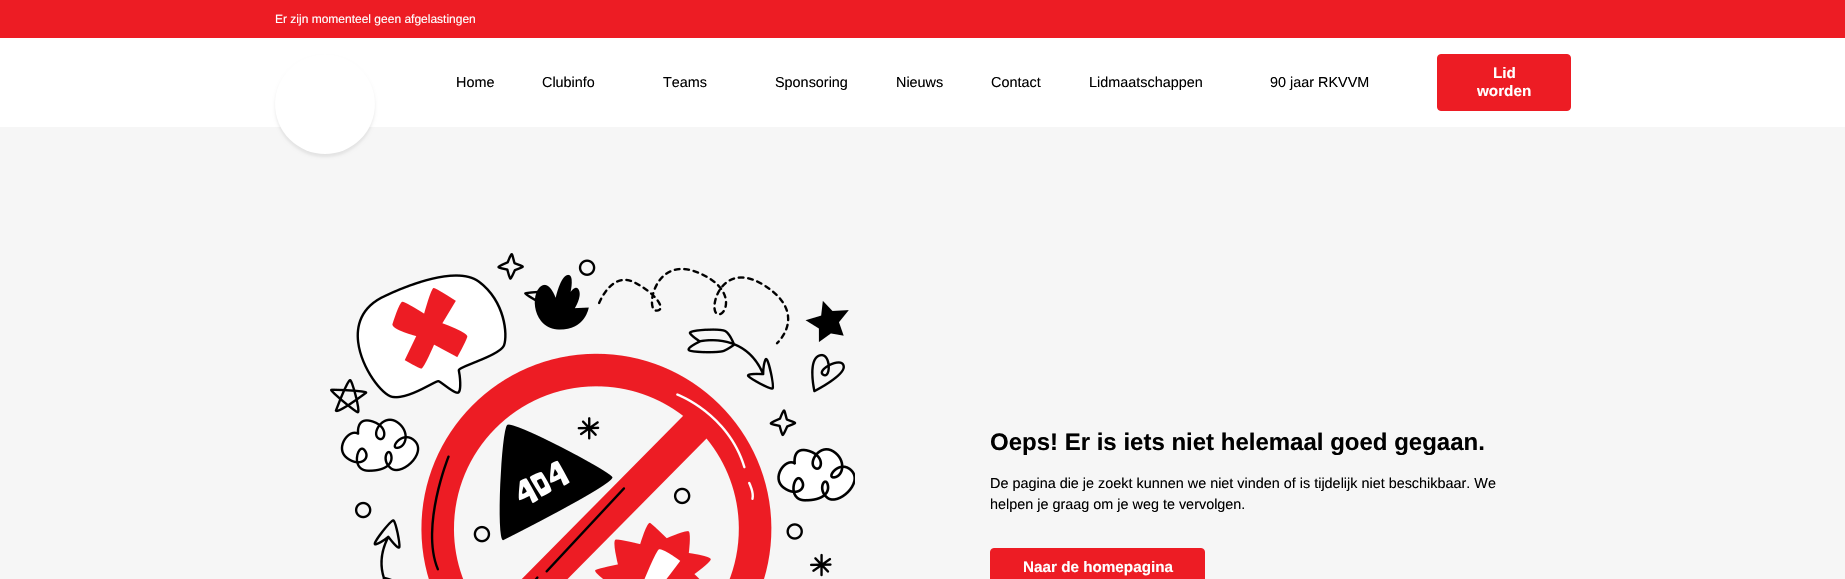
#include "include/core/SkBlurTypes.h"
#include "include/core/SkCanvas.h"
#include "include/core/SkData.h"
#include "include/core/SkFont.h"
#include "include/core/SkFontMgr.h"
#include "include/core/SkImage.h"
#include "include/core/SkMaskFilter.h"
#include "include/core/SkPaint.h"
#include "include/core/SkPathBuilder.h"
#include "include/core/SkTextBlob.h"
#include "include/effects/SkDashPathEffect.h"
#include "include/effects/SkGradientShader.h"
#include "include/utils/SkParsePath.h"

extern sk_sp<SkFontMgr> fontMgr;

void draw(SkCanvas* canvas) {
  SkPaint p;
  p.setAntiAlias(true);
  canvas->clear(SkColorSetRGB(246, 246, 246));
  p.setColor(SK_ColorWHITE);
  canvas->drawRect(SkRect::MakeLTRB(0, 38, 1845, 127), p);
  p.setColor(SkColorSetRGB(237, 28, 36));
  canvas->drawRect(SkRect::MakeLTRB(0, 0, 1845, 38), p);
  p.setColor(SkColorSetARGB(20, 0, 0, 0));
  p.setMaskFilter(SkMaskFilter::MakeBlur(kNormal_SkBlurStyle, 1.5f));
  canvas->drawRoundRect(SkRect::MakeLTRB(275, 57, 375, 157), 50, 50, p);
  p.setMaskFilter(nullptr);
  p.setColor(SK_ColorWHITE);
  canvas->drawCircle(325, 104, 50, p);
  p.setColor(SkColorSetRGB(237, 28, 36));
  canvas->drawRoundRect(SkRect::MakeLTRB(1437.5f, 54.5f, 1570.5f, 110.5f), 3.5f, 3.5f, p);
  p.setStyle(SkPaint::kStroke_Style);
  p.setStrokeWidth(1);
  canvas->drawRoundRect(SkRect::MakeLTRB(1437.5f, 54.5f, 1570.5f, 110.5f), 3.5f, 3.5f, p);
  canvas->drawImageRect(SkImages::DeferredFromEncodedData(SkData::MakeFromFileName("images/1.png")), SkRect::MakeLTRB(330, 253, 855, 579), SkSamplingOptions());
  p.setStyle(SkPaint::kFill_Style);
  canvas->drawRoundRect(SkRect::MakeLTRB(990.5f, 548.5f, 1204.5f, 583.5f), 3.5f, 3.5f, p);
  p.setStyle(SkPaint::kStroke_Style);
  canvas->drawRoundRect(SkRect::MakeLTRB(990.5f, 548.5f, 1204.5f, 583.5f), 3.5f, 3.5f, p);
  SkFont font1(fontMgr->matchFamilyStyle("Liberation Sans", SkFontStyle::Normal()), 12);
  font1.setSubpixel(true);
  p.setStyle(SkPaint::kFill_Style);
  p.setColor(SK_ColorWHITE);
  canvas->drawString("Er zijn momenteel geen afgelastingen", 275, 23, font1, p);
  SkFont font2(fontMgr->matchFamilyStyle("Liberation Sans", SkFontStyle::Normal()), 14.4f);
  font2.setSubpixel(true);
  p.setColor(SK_ColorBLACK);
  canvas->drawString("Home", 456, 87, font2, p);
  canvas->drawString("Clubinfo", 542, 87, font2, p);
  canvas->drawString("Teams", 663, 87, font2, p);
  canvas->drawString("Sponsoring", 775, 87, font2, p);
  canvas->drawString("Nieuws", 896, 87, font2, p);
  canvas->drawString("Contact", 991, 87, font2, p);
  canvas->drawString("Lidmaatschappen", 1089, 87, font2, p);
  canvas->drawString("90 jaar RKVVM", 1270, 87, font2, p);
  SkFont font3(fontMgr->matchFamilyStyle("Liberation Sans", SkFontStyle::Bold()), 15.25f);
  font3.setSubpixel(true);
  p.setColor(SK_ColorWHITE);
  canvas->drawString("Lid", 1493, 78, font3, p);
  canvas->drawString("worden", 1477, 96, font3, p);
  SkFont font4(fontMgr->matchFamilyStyle("Liberation Sans", SkFontStyle::Bold()), 24);
  font4.setSubpixel(true);
  p.setColor(SK_ColorBLACK);
  canvas->drawString("Oeps! Er is iets niet helemaal goed gegaan.", 990, 450, font4, p);
  canvas->drawString("De pagina die je zoekt kunnen we niet vinden of is tijdelijk niet beschikbaar. We", 990, 488, font2, p);
  canvas->drawString("helpen je graag om je weg te vervolgen.", 990, 509, font2, p);
  p.setColor(SK_ColorWHITE);
  canvas->drawString("Naar de homepagina", 1023, 572, font3, p);
}
